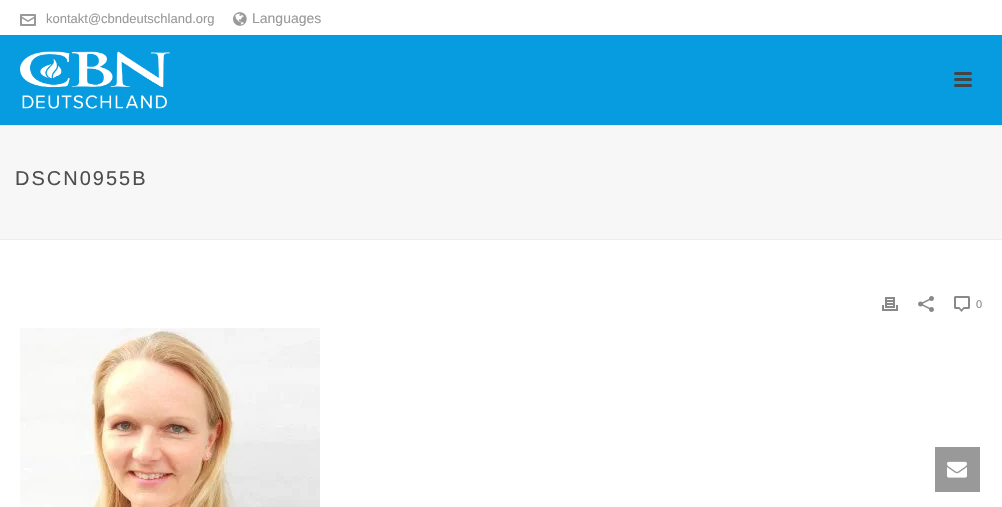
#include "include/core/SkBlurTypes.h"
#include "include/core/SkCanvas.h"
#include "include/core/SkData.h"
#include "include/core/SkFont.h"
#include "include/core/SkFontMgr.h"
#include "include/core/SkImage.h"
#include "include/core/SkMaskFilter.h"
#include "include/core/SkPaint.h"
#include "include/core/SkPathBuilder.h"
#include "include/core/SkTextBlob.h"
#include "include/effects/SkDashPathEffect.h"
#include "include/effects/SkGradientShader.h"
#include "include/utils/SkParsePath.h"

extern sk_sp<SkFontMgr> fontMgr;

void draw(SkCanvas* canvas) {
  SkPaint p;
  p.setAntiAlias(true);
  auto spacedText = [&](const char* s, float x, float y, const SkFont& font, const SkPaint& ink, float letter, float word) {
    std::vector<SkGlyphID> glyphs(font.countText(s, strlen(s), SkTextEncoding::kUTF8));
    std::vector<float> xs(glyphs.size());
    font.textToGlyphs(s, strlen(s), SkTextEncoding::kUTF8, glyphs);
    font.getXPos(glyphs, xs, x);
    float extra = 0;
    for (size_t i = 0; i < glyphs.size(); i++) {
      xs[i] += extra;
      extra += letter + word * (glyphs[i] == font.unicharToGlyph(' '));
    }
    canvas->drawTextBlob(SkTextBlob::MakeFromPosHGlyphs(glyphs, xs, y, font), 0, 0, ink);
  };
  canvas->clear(SK_ColorWHITE);
  p.setColor(SkColorSetRGB(247, 247, 247));
  canvas->drawRect(SkRect::MakeLTRB(0, 126, 1002, 239), p);
  p.setColor(SkColorSetRGB(237, 237, 237));
  canvas->drawRect(SkRect::MakeLTRB(0, 239, 1002, 240), p);
  canvas->drawImageRect(SkImages::DeferredFromEncodedData(SkData::MakeFromFileName("images/1.png")), SkRect::MakeLTRB(20, 14, 36, 26), SkSamplingOptions());
  canvas->drawImageRect(SkImages::DeferredFromEncodedData(SkData::MakeFromFileName("images/2.png")), SkRect::MakeLTRB(233, 12, 247, 26), SkSamplingOptions());
  canvas->drawRect(SkRect::MakeLTRB(0, 125, 1002, 126), p);
  p.setColor(SkColorSetRGB(7, 155, 223));
  canvas->drawRect(SkRect::MakeLTRB(0, 35, 1002, 125), p);
  canvas->drawImageRect(SkImages::DeferredFromEncodedData(SkData::MakeFromFileName("images/3.png")), SkRect::MakeLTRB(20, 51, 170, 109), SkSamplingOptions());
  p.setColor(SkColorSetRGB(68, 68, 68));
  canvas->drawRoundRect(SkRect::MakeLTRB(954, 72, 972, 75), 1.5f, 1.5f, p);
  canvas->drawRoundRect(SkRect::MakeLTRB(954, 78, 972, 81), 1.5f, 1.5f, p);
  canvas->drawRoundRect(SkRect::MakeLTRB(954, 84, 972, 87), 1.5f, 1.5f, p);
  canvas->drawImageRect(SkImages::DeferredFromEncodedData(SkData::MakeFromFileName("images/4.png")), SkRect::MakeLTRB(882, 297, 898, 311), SkSamplingOptions());
  canvas->drawImageRect(SkImages::DeferredFromEncodedData(SkData::MakeFromFileName("images/5.png")), SkRect::MakeLTRB(918, 296, 934, 312), SkSamplingOptions());
  canvas->drawImageRect(SkImages::DeferredFromEncodedData(SkData::MakeFromFileName("images/6.png")), SkRect::MakeLTRB(954, 296, 970, 312), SkSamplingOptions());
  canvas->drawImageRect(SkImages::DeferredFromEncodedData(SkData::MakeFromFileName("images/7.png")), SkRect::MakeLTRB(20, 328, 320, 507), SkSamplingOptions());
  p.setColor(SkColorSetRGB(153, 153, 153));
  canvas->drawRect(SkRect::MakeLTRB(935, 447, 980, 492), p);
  canvas->drawImageRect(SkImages::DeferredFromEncodedData(SkData::MakeFromFileName("images/8.png")), SkRect::MakeLTRB(947, 461, 967, 478), SkSamplingOptions());
  SkFont font1(fontMgr->matchFamilyStyle("Liberation Sans", SkFontStyle::Normal()), 13);
  font1.setSubpixel(true);
  canvas->drawString("kontakt@cbndeutschland.org", 46, 23, font1, p);
  SkFont font2(fontMgr->matchFamilyStyle("Liberation Sans", SkFontStyle::Normal()), 14);
  font2.setSubpixel(true);
  canvas->drawString("Languages", 252, 23, font2, p);
  SkFont font3(fontMgr->matchFamilyStyle("Liberation Sans", SkFontStyle::Normal()), 20);
  font3.setSubpixel(true);
  p.setColor(SkColorSetRGB(77, 77, 77));
  spacedText("DSCN0955B", 15, 185, font3, p, 2, 0);
  SkFont font4(fontMgr->matchFamilyStyle("Liberation Sans", SkFontStyle::Normal()), 11);
  font4.setSubpixel(true);
  p.setColor(SkColorSetRGB(137, 137, 137));
  canvas->drawString("0", 976, 308, font4, p);
}
